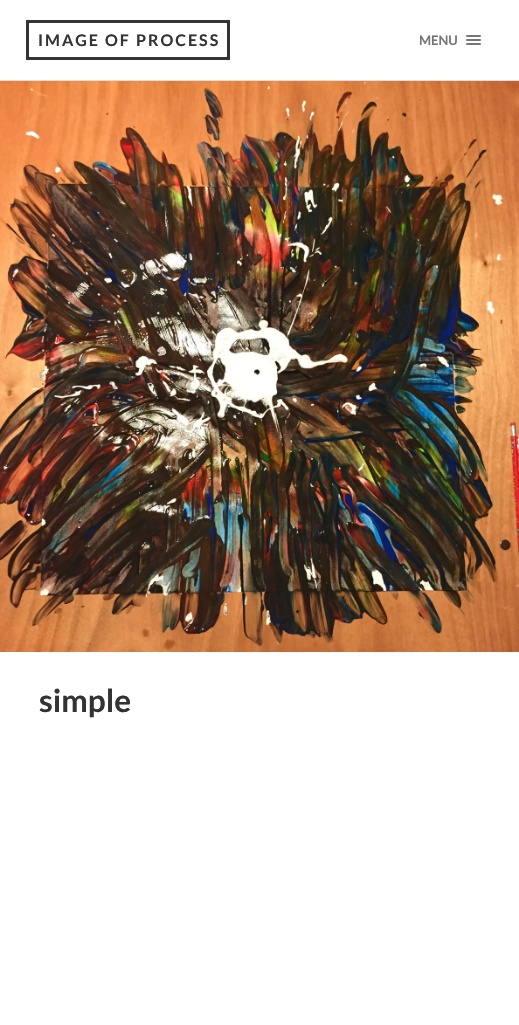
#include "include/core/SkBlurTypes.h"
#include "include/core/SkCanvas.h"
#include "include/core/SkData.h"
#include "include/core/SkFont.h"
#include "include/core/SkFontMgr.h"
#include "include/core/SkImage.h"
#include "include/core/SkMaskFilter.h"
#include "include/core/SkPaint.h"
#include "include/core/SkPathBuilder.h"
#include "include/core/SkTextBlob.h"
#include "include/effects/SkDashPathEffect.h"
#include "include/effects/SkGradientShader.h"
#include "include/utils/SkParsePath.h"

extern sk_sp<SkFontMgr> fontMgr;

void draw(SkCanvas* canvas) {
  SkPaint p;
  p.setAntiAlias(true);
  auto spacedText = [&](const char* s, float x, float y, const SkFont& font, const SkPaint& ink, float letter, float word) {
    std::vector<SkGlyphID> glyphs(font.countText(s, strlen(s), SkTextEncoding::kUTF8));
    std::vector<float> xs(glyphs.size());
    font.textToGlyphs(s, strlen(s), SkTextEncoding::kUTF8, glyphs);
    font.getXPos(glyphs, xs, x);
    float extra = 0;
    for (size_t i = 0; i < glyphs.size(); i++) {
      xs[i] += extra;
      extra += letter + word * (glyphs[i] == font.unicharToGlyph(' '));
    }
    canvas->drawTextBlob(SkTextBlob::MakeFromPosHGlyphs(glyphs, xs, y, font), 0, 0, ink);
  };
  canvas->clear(SK_ColorWHITE);
  p.setColor(SkColorSetRGB(221, 221, 221));
  canvas->drawRect(SkRect::MakeLTRB(0, 80, 519, 81), p);
  p.setStyle(SkPaint::kStroke_Style);
  p.setStrokeWidth(3);
  p.setColor(SkColorSetRGB(51, 51, 51));
  canvas->drawRect(SkRect::MakeLTRB(27.5f, 21.5f, 228.5f, 58.5f), p);
  p.setStyle(SkPaint::kFill_Style);
  p.setColor(SkColorSetRGB(118, 118, 118));
  canvas->drawRoundRect(SkRect::MakeLTRB(466, 35, 481, 37), 1, 1, p);
  canvas->drawRoundRect(SkRect::MakeLTRB(466, 39, 481, 41), 1, 1, p);
  canvas->drawRoundRect(SkRect::MakeLTRB(466, 43, 481, 45), 1, 1, p);
  canvas->drawImageRect(SkImages::DeferredFromEncodedData(SkData::MakeFromFileName("images/1.png")), SkRect::MakeLTRB(0, 81, 519, 652), SkSamplingOptions());
  SkFont font1(fontMgr->matchFamilyStyle("Lato", SkFontStyle::Bold()), 16);
  font1.setSubpixel(true);
  p.setColor(SkColorSetRGB(51, 51, 51));
  spacedText("IMAGE OF PROCESS", 38, 46, font1, p, 2, 0);
  SkFont font2(fontMgr->matchFamilyStyle("Lato", SkFontStyle::Bold()), 13);
  font2.setSubpixel(true);
  p.setColor(SkColorSetRGB(118, 118, 118));
  canvas->drawString("MENU", 419, 45, font2, p);
  SkFont font3(fontMgr->matchFamilyStyle("Lato", SkFontStyle::Bold()), 31.5f);
  font3.setSubpixel(true);
  p.setColor(SkColorSetRGB(51, 51, 51));
  canvas->drawString("simple", 39, 712, font3, p);
}
